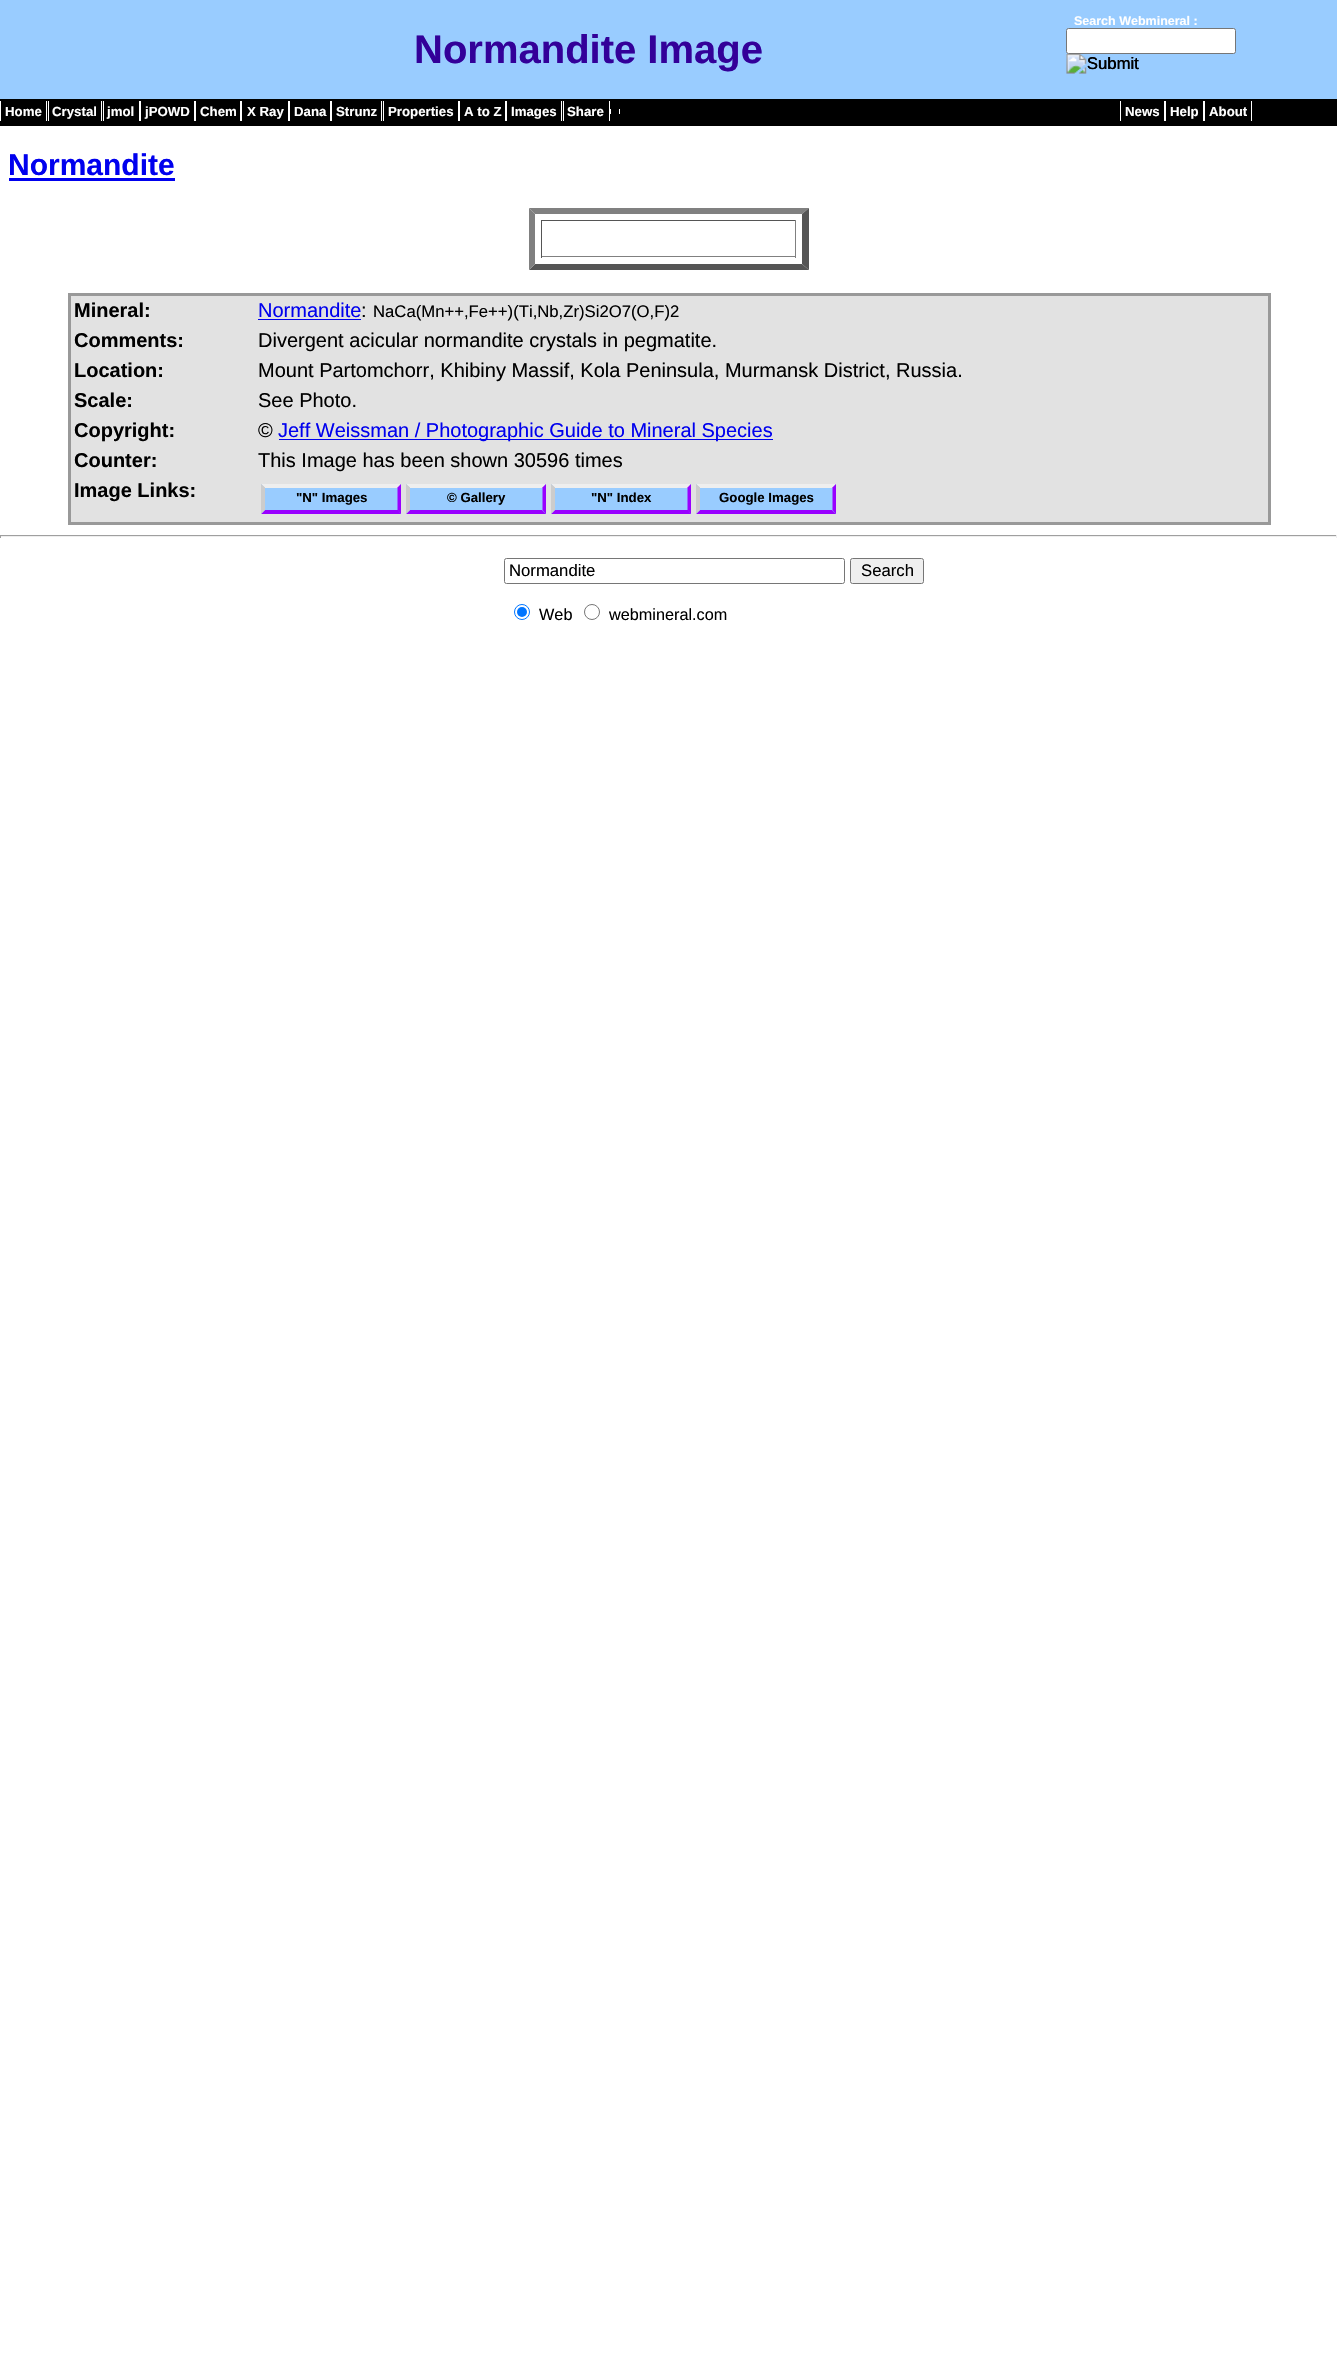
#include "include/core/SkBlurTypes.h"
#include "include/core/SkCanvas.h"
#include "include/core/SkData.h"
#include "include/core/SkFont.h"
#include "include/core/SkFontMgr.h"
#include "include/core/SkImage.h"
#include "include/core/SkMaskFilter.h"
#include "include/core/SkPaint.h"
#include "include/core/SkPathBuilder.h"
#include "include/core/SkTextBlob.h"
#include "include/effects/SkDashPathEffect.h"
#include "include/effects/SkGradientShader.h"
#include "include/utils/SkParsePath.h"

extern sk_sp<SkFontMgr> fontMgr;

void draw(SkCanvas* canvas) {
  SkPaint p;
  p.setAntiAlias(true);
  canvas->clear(SK_ColorWHITE);
  p.setColor(SkColorSetRGB(153, 204, 255));
  canvas->drawRect(SkRect::MakeLTRB(0, 0, 1337, 99), p);
  p.setColor(SK_ColorBLACK);
  canvas->drawRect(SkRect::MakeLTRB(0, 99, 1337, 126), p);
  p.setColor(SK_ColorWHITE);
  canvas->drawRoundRect(SkRect::MakeLTRB(1066.5f, 28.5f, 1235.5f, 53.5f), 2, 2, p);
  p.setStyle(SkPaint::kStroke_Style);
  p.setStrokeWidth(1);
  p.setColor(SkColorSetRGB(118, 118, 118));
  canvas->drawRoundRect(SkRect::MakeLTRB(1066.5f, 28.5f, 1235.5f, 53.5f), 2, 2, p);
  canvas->drawImageRect(SkImages::DeferredFromEncodedData(SkData::MakeFromFileName("images/1.png")), SkRect::MakeLTRB(1066, 54, 1139, 74), SkSamplingOptions());
  p.setStyle(SkPaint::kFill_Style);
  p.setColor(SK_ColorWHITE);
  canvas->drawRect(SkRect::MakeLTRB(46, 101, 47, 121), p);
  canvas->drawRect(SkRect::MakeLTRB(0, 101, 1, 121), p);
  canvas->drawRect(SkRect::MakeLTRB(101, 101, 102, 121), p);
  canvas->drawRect(SkRect::MakeLTRB(48, 101, 49, 121), p);
  canvas->drawRect(SkRect::MakeLTRB(139, 101, 141, 121), p);
  canvas->drawRect(SkRect::MakeLTRB(103, 101, 104, 121), p);
  canvas->drawRect(SkRect::MakeLTRB(194, 101, 196, 121), p);
  canvas->drawRect(SkRect::MakeLTRB(240, 101, 242, 121), p);
  canvas->drawRect(SkRect::MakeLTRB(288, 101, 290, 121), p);
  canvas->drawRect(SkRect::MakeLTRB(330, 101, 332, 121), p);
  canvas->drawRect(SkRect::MakeLTRB(381, 101, 382, 121), p);
  canvas->drawRect(SkRect::MakeLTRB(458, 101, 460, 121), p);
  canvas->drawRect(SkRect::MakeLTRB(383, 101, 384, 121), p);
  canvas->drawRect(SkRect::MakeLTRB(505, 101, 507, 121), p);
  canvas->drawRect(SkRect::MakeLTRB(561, 101, 562, 121), p);
  canvas->drawRect(SkRect::MakeLTRB(609, 101, 610, 121), p);
  canvas->drawRect(SkRect::MakeLTRB(563, 101, 564, 121), p);
  canvas->drawRect(SkRect::MakeLTRB(619, 109, 620, 114), p);
  canvas->drawRect(SkRect::MakeLTRB(610, 109, 611, 114), p);
  canvas->drawRect(SkRect::MakeLTRB(1164, 101, 1166, 121), p);
  canvas->drawRect(SkRect::MakeLTRB(1120, 101, 1121, 121), p);
  canvas->drawRect(SkRect::MakeLTRB(1203, 101, 1205, 121), p);
  canvas->drawRect(SkRect::MakeLTRB(1251, 101, 1252, 121), p);
  p.setColor(SkColorSetRGB(0, 0, 238));
  canvas->drawRect(SkRect::MakeLTRB(9, 178, 175, 181), p);
  p.setColor(SkColorSetRGB(128, 128, 128));
  canvas->drawPath(SkPathBuilder().moveTo(529, 208).lineTo(809, 208).lineTo(802, 214).lineTo(535, 214).close().detach(), p);
  p.setColor(SkColorSetRGB(85, 85, 85));
  canvas->drawPath(SkPathBuilder().moveTo(809, 208).lineTo(809, 270).lineTo(802, 264).lineTo(802, 214).close().detach(), p);
  canvas->drawPath(SkPathBuilder().moveTo(809, 270).lineTo(529, 270).lineTo(535, 264).lineTo(802, 264).close().detach(), p);
  p.setColor(SkColorSetRGB(128, 128, 128));
  canvas->drawPath(SkPathBuilder().moveTo(529, 270).lineTo(529, 208).lineTo(535, 214).lineTo(535, 264).close().detach(), p);
  p.setColor(SkColorSetRGB(85, 85, 85));
  canvas->drawRect(SkRect::MakeLTRB(541, 220, 796, 221), p);
  p.setColor(SkColorSetRGB(128, 128, 128));
  canvas->drawRect(SkRect::MakeLTRB(795, 220, 796, 258), p);
  canvas->drawRect(SkRect::MakeLTRB(541, 256, 796, 257), p);
  p.setColor(SkColorSetRGB(85, 85, 85));
  canvas->drawRect(SkRect::MakeLTRB(541, 220, 542, 258), p);
  p.setColor(SkColorSetRGB(226, 226, 226));
  canvas->drawRect(SkRect::MakeLTRB(69.5f, 294.5f, 1269.5f, 523.5f), p);
  p.setStyle(SkPaint::kStroke_Style);
  p.setStrokeWidth(3);
  p.setColor(SkColorSetRGB(153, 153, 153));
  canvas->drawRect(SkRect::MakeLTRB(69.5f, 294.5f, 1269.5f, 523.5f), p);
  p.setStyle(SkPaint::kFill_Style);
  p.setColor(SkColorSetRGB(0, 0, 238));
  canvas->drawRect(SkRect::MakeLTRB(258, 319, 361, 320), p);
  canvas->drawRect(SkRect::MakeLTRB(279, 439, 773, 440), p);
  p.setColor(SkColorSetRGB(153, 204, 255));
  canvas->drawRect(SkRect::MakeLTRB(261, 484, 401, 514), p);
  p.setColor(SkColorSetRGB(238, 238, 238));
  canvas->drawPath(SkPathBuilder().moveTo(261, 484).lineTo(401, 484).lineTo(398, 488).lineTo(265, 488).close().detach(), p);
  p.setColor(SkColorSetRGB(153, 0, 255));
  canvas->drawPath(SkPathBuilder().moveTo(401, 484).lineTo(401, 514).lineTo(397.5f, 510).lineTo(397.5f, 487.5f).close().detach(), p);
  canvas->drawPath(SkPathBuilder().moveTo(401, 514).lineTo(261, 514).lineTo(265, 510).lineTo(398, 510).close().detach(), p);
  p.setColor(SkColorSetRGB(204, 204, 204));
  canvas->drawPath(SkPathBuilder().moveTo(261, 514).lineTo(261, 484).lineTo(265, 487.5f).lineTo(265, 510).close().detach(), p);
  p.setColor(SkColorSetRGB(153, 204, 255));
  canvas->drawRect(SkRect::MakeLTRB(406, 484, 546, 514), p);
  p.setColor(SkColorSetRGB(238, 238, 238));
  canvas->drawPath(SkPathBuilder().moveTo(406, 484).lineTo(546, 484).lineTo(542, 488).lineTo(410, 488).close().detach(), p);
  p.setColor(SkColorSetRGB(153, 0, 255));
  canvas->drawPath(SkPathBuilder().moveTo(546, 484).lineTo(546, 514).lineTo(542.5f, 510).lineTo(542.5f, 487.5f).close().detach(), p);
  canvas->drawPath(SkPathBuilder().moveTo(546, 514).lineTo(406, 514).lineTo(410, 510).lineTo(542, 510).close().detach(), p);
  p.setColor(SkColorSetRGB(204, 204, 204));
  canvas->drawPath(SkPathBuilder().moveTo(406, 514).lineTo(406, 484).lineTo(410, 487.5f).lineTo(410, 510).close().detach(), p);
  p.setColor(SkColorSetRGB(153, 204, 255));
  canvas->drawRect(SkRect::MakeLTRB(551, 484, 691, 514), p);
  p.setColor(SkColorSetRGB(238, 238, 238));
  canvas->drawPath(SkPathBuilder().moveTo(551, 484).lineTo(691, 484).lineTo(688, 488).lineTo(555, 488).close().detach(), p);
  p.setColor(SkColorSetRGB(153, 0, 255));
  canvas->drawPath(SkPathBuilder().moveTo(691, 484).lineTo(691, 514).lineTo(687.5f, 510).lineTo(687.5f, 487.5f).close().detach(), p);
  canvas->drawPath(SkPathBuilder().moveTo(691, 514).lineTo(551, 514).lineTo(555, 510).lineTo(688, 510).close().detach(), p);
  p.setColor(SkColorSetRGB(204, 204, 204));
  canvas->drawPath(SkPathBuilder().moveTo(551, 514).lineTo(551, 484).lineTo(555, 487.5f).lineTo(555, 510).close().detach(), p);
  p.setColor(SkColorSetRGB(153, 204, 255));
  canvas->drawRect(SkRect::MakeLTRB(696, 484, 836, 514), p);
  p.setColor(SkColorSetRGB(238, 238, 238));
  canvas->drawPath(SkPathBuilder().moveTo(696, 484).lineTo(836, 484).lineTo(832, 488).lineTo(700, 488).close().detach(), p);
  p.setColor(SkColorSetRGB(153, 0, 255));
  canvas->drawPath(SkPathBuilder().moveTo(836, 484).lineTo(836, 514).lineTo(832.5f, 510).lineTo(832.5f, 487.5f).close().detach(), p);
  canvas->drawPath(SkPathBuilder().moveTo(836, 514).lineTo(696, 514).lineTo(700, 510).lineTo(832, 510).close().detach(), p);
  p.setColor(SkColorSetRGB(204, 204, 204));
  canvas->drawPath(SkPathBuilder().moveTo(696, 514).lineTo(696, 484).lineTo(700, 487.5f).lineTo(700, 510).close().detach(), p);
  p.setColor(SkColorSetRGB(159, 159, 159));
  canvas->drawRect(SkRect::MakeLTRB(0, 535, 1337, 536), p);
  p.setColor(SkColorSetRGB(238, 238, 238));
  canvas->drawRect(SkRect::MakeLTRB(1336, 535, 1337, 538), p);
  canvas->drawRect(SkRect::MakeLTRB(0, 536, 1337, 537), p);
  p.setColor(SkColorSetRGB(159, 159, 159));
  canvas->drawRect(SkRect::MakeLTRB(0, 535, 1, 538), p);
  p.setStyle(SkPaint::kStroke_Style);
  p.setStrokeWidth(1);
  p.setColor(SkColorSetRGB(118, 118, 118));
  canvas->drawRoundRect(SkRect::MakeLTRB(504.5f, 558.5f, 844.5f, 583.5f), 2, 2, p);
  p.setStyle(SkPaint::kFill_Style);
  p.setColor(SkColorSetRGB(239, 239, 239));
  canvas->drawRoundRect(SkRect::MakeLTRB(850.5f, 558.5f, 923.5f, 583.5f), 2, 2, p);
  p.setStyle(SkPaint::kStroke_Style);
  p.setColor(SkColorSetRGB(118, 118, 118));
  canvas->drawRoundRect(SkRect::MakeLTRB(850.5f, 558.5f, 923.5f, 583.5f), 2, 2, p);
  p.setColor(SkColorSetRGB(0, 117, 255));
  canvas->drawCircle(522, 612, 7.5f, p);
  p.setStyle(SkPaint::kFill_Style);
  canvas->drawCircle(522, 612, 5, p);
  p.setStyle(SkPaint::kStroke_Style);
  p.setColor(SkColorSetRGB(118, 118, 118));
  canvas->drawCircle(592, 612, 7.5f, p);
  SkFont font1(fontMgr->matchFamilyStyle("Liberation Sans", SkFontStyle::Bold()), 40);
  font1.setSubpixel(true);
  p.setStyle(SkPaint::kFill_Style);
  p.setColor(SkColorSetRGB(51, 0, 153));
  canvas->drawString("Normandite Image", 414, 63, font1, p);
  SkFont font2(fontMgr->matchFamilyStyle("Liberation Sans", SkFontStyle::Bold()), 12.5f);
  font2.setSubpixel(true);
  p.setColor(SK_ColorWHITE);
  canvas->drawString("Search Webmineral :", 1074, 25, font2, p);
  SkFont font3(fontMgr->matchFamilyStyle("Liberation Sans", SkFontStyle::Normal()), 16.7f);
  font3.setSubpixel(true);
  p.setColor(SK_ColorBLACK);
  canvas->drawString("Submit", 1087, 69, font3, p);
  SkFont font4(fontMgr->matchFamilyStyle("Liberation Sans", SkFontStyle::Bold()), 13.25f);
  font4.setSubpixel(true);
  p.setColor(SK_ColorWHITE);
  canvas->drawString("Home", 5, 116, font4, p);
  canvas->drawString("Crystal", 52, 116, font4, p);
  canvas->drawString("jmol", 107, 116, font4, p);
  canvas->drawString("jPOWD", 145, 116, font4, p);
  canvas->drawString("Chem", 200, 116, font4, p);
  canvas->drawString("X Ray", 247, 116, font4, p);
  canvas->drawString("Dana", 294, 116, font4, p);
  canvas->drawString("Strunz", 336, 116, font4, p);
  canvas->drawString("Properties", 388, 116, font4, p);
  canvas->drawString("A to Z", 464, 116, font4, p);
  canvas->drawString("Images", 511, 116, font4, p);
  canvas->drawString("Share", 567, 116, font4, p);
  canvas->drawString("News", 1125, 116, font4, p);
  canvas->drawString("Help", 1170, 116, font4, p);
  canvas->drawString("About", 1209, 116, font4, p);
  SkFont font5(fontMgr->matchFamilyStyle("Liberation Sans", SkFontStyle::Bold()), 30);
  font5.setSubpixel(true);
  p.setColor(SkColorSetRGB(0, 0, 238));
  canvas->drawString("Normandite", 8, 175, font5, p);
  SkFont font6(fontMgr->matchFamilyStyle("Liberation Sans", SkFontStyle::Bold()), 20);
  font6.setSubpixel(true);
  p.setColor(SK_ColorBLACK);
  canvas->drawString("Mineral:", 74, 317, font6, p);
  SkFont font7(fontMgr->matchFamilyStyle("Liberation Sans", SkFontStyle::Normal()), 20);
  font7.setSubpixel(true);
  p.setColor(SkColorSetRGB(0, 0, 238));
  canvas->drawString("Normandite", 258, 317, font7, p);
  p.setColor(SK_ColorBLACK);
  canvas->drawString(":", 361, 317, font7, p);
  canvas->drawString("NaCa(Mn++,Fe++)(Ti,Nb,Zr)Si2O7(O,F)2", 373, 317, font3, p);
  canvas->drawString("Comments:", 74, 347, font6, p);
  canvas->drawString("Divergent acicular normandite crystals in pegmatite.", 258, 347, font7, p);
  canvas->drawString("Location:", 74, 377, font6, p);
  canvas->drawString("Mount Partomchorr, Khibiny Massif, Kola Peninsula, Murmansk District, Russia.", 258, 377, font7, p);
  canvas->drawString("Scale:", 74, 407, font6, p);
  canvas->drawString("See Photo.", 258, 407, font7, p);
  canvas->drawString("Copyright:", 74, 437, font6, p);
  canvas->drawString("©", 258, 437, font7, p);
  p.setColor(SkColorSetRGB(0, 0, 238));
  canvas->drawString("Jeff Weissman / Photographic Guide to Mineral Species", 278, 437, font7, p);
  p.setColor(SK_ColorBLACK);
  canvas->drawString("Counter:", 74, 467, font6, p);
  canvas->drawString("This Image has been shown 30596 times", 258, 467, font7, p);
  canvas->drawString("Image Links:", 74, 497, font6, p);
  canvas->drawString("\"N\" Images", 296, 502, font4, p);
  canvas->drawString("© Gallery", 447, 502, font4, p);
  canvas->drawString("\"N\" Index", 591, 502, font4, p);
  canvas->drawString("Google Images", 719, 502, font4, p);
  canvas->drawString("Normandite", 509, 576, font3, p);
  canvas->drawString("Search", 861, 576, font3, p);
  SkFont font8(fontMgr->matchFamilyStyle("Liberation Sans", SkFontStyle::Normal()), 16.25f);
  font8.setSubpixel(true);
  canvas->drawString("Web", 539, 620, font8, p);
  canvas->drawString("webmineral.com", 609, 620, font8, p);
}
